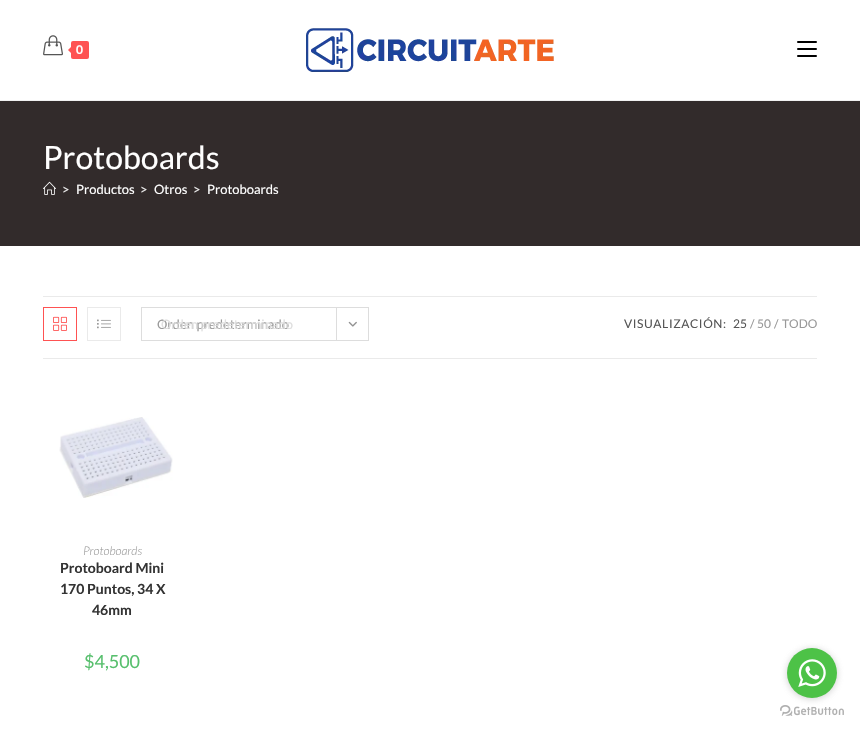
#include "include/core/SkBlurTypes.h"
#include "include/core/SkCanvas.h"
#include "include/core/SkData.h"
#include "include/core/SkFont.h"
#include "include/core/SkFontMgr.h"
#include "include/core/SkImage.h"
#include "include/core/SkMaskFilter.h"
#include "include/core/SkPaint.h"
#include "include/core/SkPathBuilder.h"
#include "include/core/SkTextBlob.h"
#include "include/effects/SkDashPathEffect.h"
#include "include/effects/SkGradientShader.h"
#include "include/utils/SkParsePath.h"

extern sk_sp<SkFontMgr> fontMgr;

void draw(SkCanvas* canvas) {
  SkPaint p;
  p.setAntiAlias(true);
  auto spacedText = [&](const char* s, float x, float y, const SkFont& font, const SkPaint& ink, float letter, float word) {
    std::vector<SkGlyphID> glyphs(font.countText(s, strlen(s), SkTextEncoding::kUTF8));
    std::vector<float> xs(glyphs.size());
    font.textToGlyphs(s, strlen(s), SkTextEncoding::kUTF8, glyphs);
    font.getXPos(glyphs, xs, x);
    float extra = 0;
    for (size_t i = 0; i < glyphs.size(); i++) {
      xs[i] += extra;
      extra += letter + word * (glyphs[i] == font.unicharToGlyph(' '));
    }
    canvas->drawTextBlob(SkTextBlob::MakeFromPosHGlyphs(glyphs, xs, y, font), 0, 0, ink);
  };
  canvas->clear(SK_ColorWHITE);
  p.setColor(SkColorSetRGB(241, 241, 241));
  canvas->drawRect(SkRect::MakeLTRB(0, 100, 860, 101), p);
  canvas->drawImageRect(SkImages::DeferredFromEncodedData(SkData::MakeFromFileName("images/1.png")), SkRect::MakeLTRB(43, 35, 63, 56), SkSamplingOptions());
  p.setColor(SkColorSetRGB(254, 82, 82));
  canvas->drawRoundRect(SkRect::MakeLTRB(71, 41, 89, 59), 2, 2, p);
  canvas->drawPath(SkPathBuilder().moveTo(73, 45).lineTo(73, 55).lineTo(68, 50).close().detach(), p);
  canvas->drawImageRect(SkImages::DeferredFromEncodedData(SkData::MakeFromFileName("images/2.png")), SkRect::MakeLTRB(306, 28, 554, 72), SkSamplingOptions());
  p.setColor(SK_ColorBLACK);
  canvas->drawRoundRect(SkRect::MakeLTRB(797, 55, 817, 57), 1, 1, p);
  canvas->drawRoundRect(SkRect::MakeLTRB(797, 41, 817, 43), 1, 1, p);
  canvas->drawRoundRect(SkRect::MakeLTRB(797, 48, 817, 50), 1, 1, p);
  p.setColor(SkColorSetRGB(50, 43, 43));
  canvas->drawRect(SkRect::MakeLTRB(0, 101, 860, 246), p);
  canvas->drawImageRect(SkImages::DeferredFromEncodedData(SkData::MakeFromFileName("images/3.png")), SkRect::MakeLTRB(43, 181, 56, 195), SkSamplingOptions());
  p.setColor(SkColorSetRGB(234, 234, 234));
  canvas->drawRect(SkRect::MakeLTRB(43, 296, 817, 297), p);
  canvas->drawRect(SkRect::MakeLTRB(43, 358, 817, 359), p);
  p.setStyle(SkPaint::kStroke_Style);
  p.setStrokeWidth(1);
  p.setColor(SkColorSetRGB(254, 82, 82));
  canvas->drawRect(SkRect::MakeLTRB(43.5f, 307.5f, 76.5f, 340.5f), p);
  canvas->drawImageRect(SkImages::DeferredFromEncodedData(SkData::MakeFromFileName("images/4.png")), SkRect::MakeLTRB(53, 316, 67, 331), SkSamplingOptions());
  p.setColor(SkColorSetRGB(234, 234, 234));
  canvas->drawRect(SkRect::MakeLTRB(87.5f, 307.5f, 120.5f, 340.5f), p);
  canvas->drawImageRect(SkImages::DeferredFromEncodedData(SkData::MakeFromFileName("images/5.png")), SkRect::MakeLTRB(97, 319, 111, 329), SkSamplingOptions());
  p.setColor(SkColorSetRGB(221, 221, 221));
  canvas->drawRect(SkRect::MakeLTRB(141.5f, 307.5f, 368.5f, 340.5f), p);
  p.setStyle(SkPaint::kFill_Style);
  canvas->drawRect(SkRect::MakeLTRB(336, 308, 337, 340), p);
  canvas->drawImageRect(SkImages::DeferredFromEncodedData(SkData::MakeFromFileName("images/6.png")), SkRect::MakeLTRB(348, 321, 357, 327), SkSamplingOptions());
  canvas->drawImageRect(SkImages::DeferredFromEncodedData(SkData::MakeFromFileName("images/7.png")), SkRect::MakeLTRB(59, 417, 173, 498), SkSamplingOptions());
  canvas->drawImageRect(SkImages::DeferredFromEncodedData(SkData::MakeFromFileName("images/9.png")), SkRect::MakeLTRB(780, 705, 844, 716), SkSamplingOptions());
  p.setColor(SkColorSetARGB(102, 136, 136, 136));
  p.setMaskFilter(SkMaskFilter::MakeBlur(kNormal_SkBlurStyle, 3.5f));
  canvas->drawRoundRect(SkRect::MakeLTRB(787, 649, 837, 699), 25, 25, p);
  p.setMaskFilter(nullptr);
  p.setColor(SkColorSetRGB(77, 194, 71));
  canvas->drawCircle(812, 673, 25, p);
  canvas->drawImageRect(SkImages::DeferredFromEncodedData(SkData::MakeFromFileName("images/8.png")), SkRect::MakeLTRB(798, 659, 826, 687), SkSamplingOptions());
  SkFont font1(fontMgr->matchFamilyStyle("Lato", SkFontStyle::Bold()), 12);
  font1.setSubpixel(true);
  p.setColor(SK_ColorWHITE);
  spacedText("0", 76, 54, font1, p, 1, 0);
  SkFont font2(fontMgr->matchFamilyStyle("Lato", SkFontStyle::Normal()), 32);
  font2.setSubpixel(true);
  canvas->drawString("Protoboards", 43, 169, font2, p);
  SkFont font3(fontMgr->matchFamilyStyle("Lato", SkFontStyle::Normal()), 13);
  font3.setSubpixel(true);
  p.setColor(SkColorSetRGB(239, 239, 239));
  canvas->drawString(">", 62, 194, font3, p);
  p.setColor(SK_ColorWHITE);
  canvas->drawString("Productos", 76, 194, font3, p);
  p.setColor(SkColorSetRGB(239, 239, 239));
  canvas->drawString(">", 140, 194, font3, p);
  p.setColor(SK_ColorWHITE);
  canvas->drawString("Otros", 154, 194, font3, p);
  p.setColor(SkColorSetRGB(239, 239, 239));
  canvas->drawString(">", 193, 194, font3, p);
  p.setColor(SK_ColorWHITE);
  canvas->drawString("Protoboards", 207, 194, font3, p);
  p.setColor(SkColorSetRGB(153, 153, 153));
  canvas->drawString("Orden predeterminado", 157, 329, font3, p);
  p.setColor(SkColorSetRGB(222, 222, 222));
  canvas->drawString("Orden predeterminado", 161, 329, font3, p);
  SkFont font4(fontMgr->matchFamilyStyle("Lato", SkFontStyle::Normal()), 12);
  font4.setSubpixel(true);
  p.setColor(SkColorSetRGB(85, 85, 85));
  spacedText("VISUALIZACIÓN:", 624, 328, font4, p, 0.6f, 0);
  canvas->drawString("25", 733, 328, font4, p);
  p.setColor(SkColorSetRGB(153, 153, 153));
  canvas->drawString("/", 750, 328, font4, p);
  canvas->drawString("50", 757, 328, font4, p);
  canvas->drawString("/", 774, 328, font4, p);
  canvas->drawString("TODO", 782, 328, font4, p);
  SkFont font5(fontMgr->matchFamilyStyle("Lato", SkFontStyle(300, SkFontStyle::kNormal_Width, SkFontStyle::kItalic_Slant)), 12);
  font5.setSubpixel(true);
  canvas->drawString("Protoboards", 83, 555, font5, p);
  SkFont font6(fontMgr->matchFamilyStyle("Lato", SkFontStyle::Bold()), 14);
  font6.setSubpixel(true);
  p.setColor(SkColorSetRGB(51, 51, 51));
  canvas->drawString("Protoboard Mini", 60, 573, font6, p);
  canvas->drawString("170 Puntos, 34 X", 60, 594, font6, p);
  canvas->drawString("46mm", 92, 615, font6, p);
  SkFont font7(fontMgr->matchFamilyStyle("Lato", SkFontStyle::Normal()), 18);
  font7.setSubpixel(true);
  p.setColor(SkColorSetRGB(87, 191, 109));
  canvas->drawString("$4,500", 84, 668, font7, p);
}
